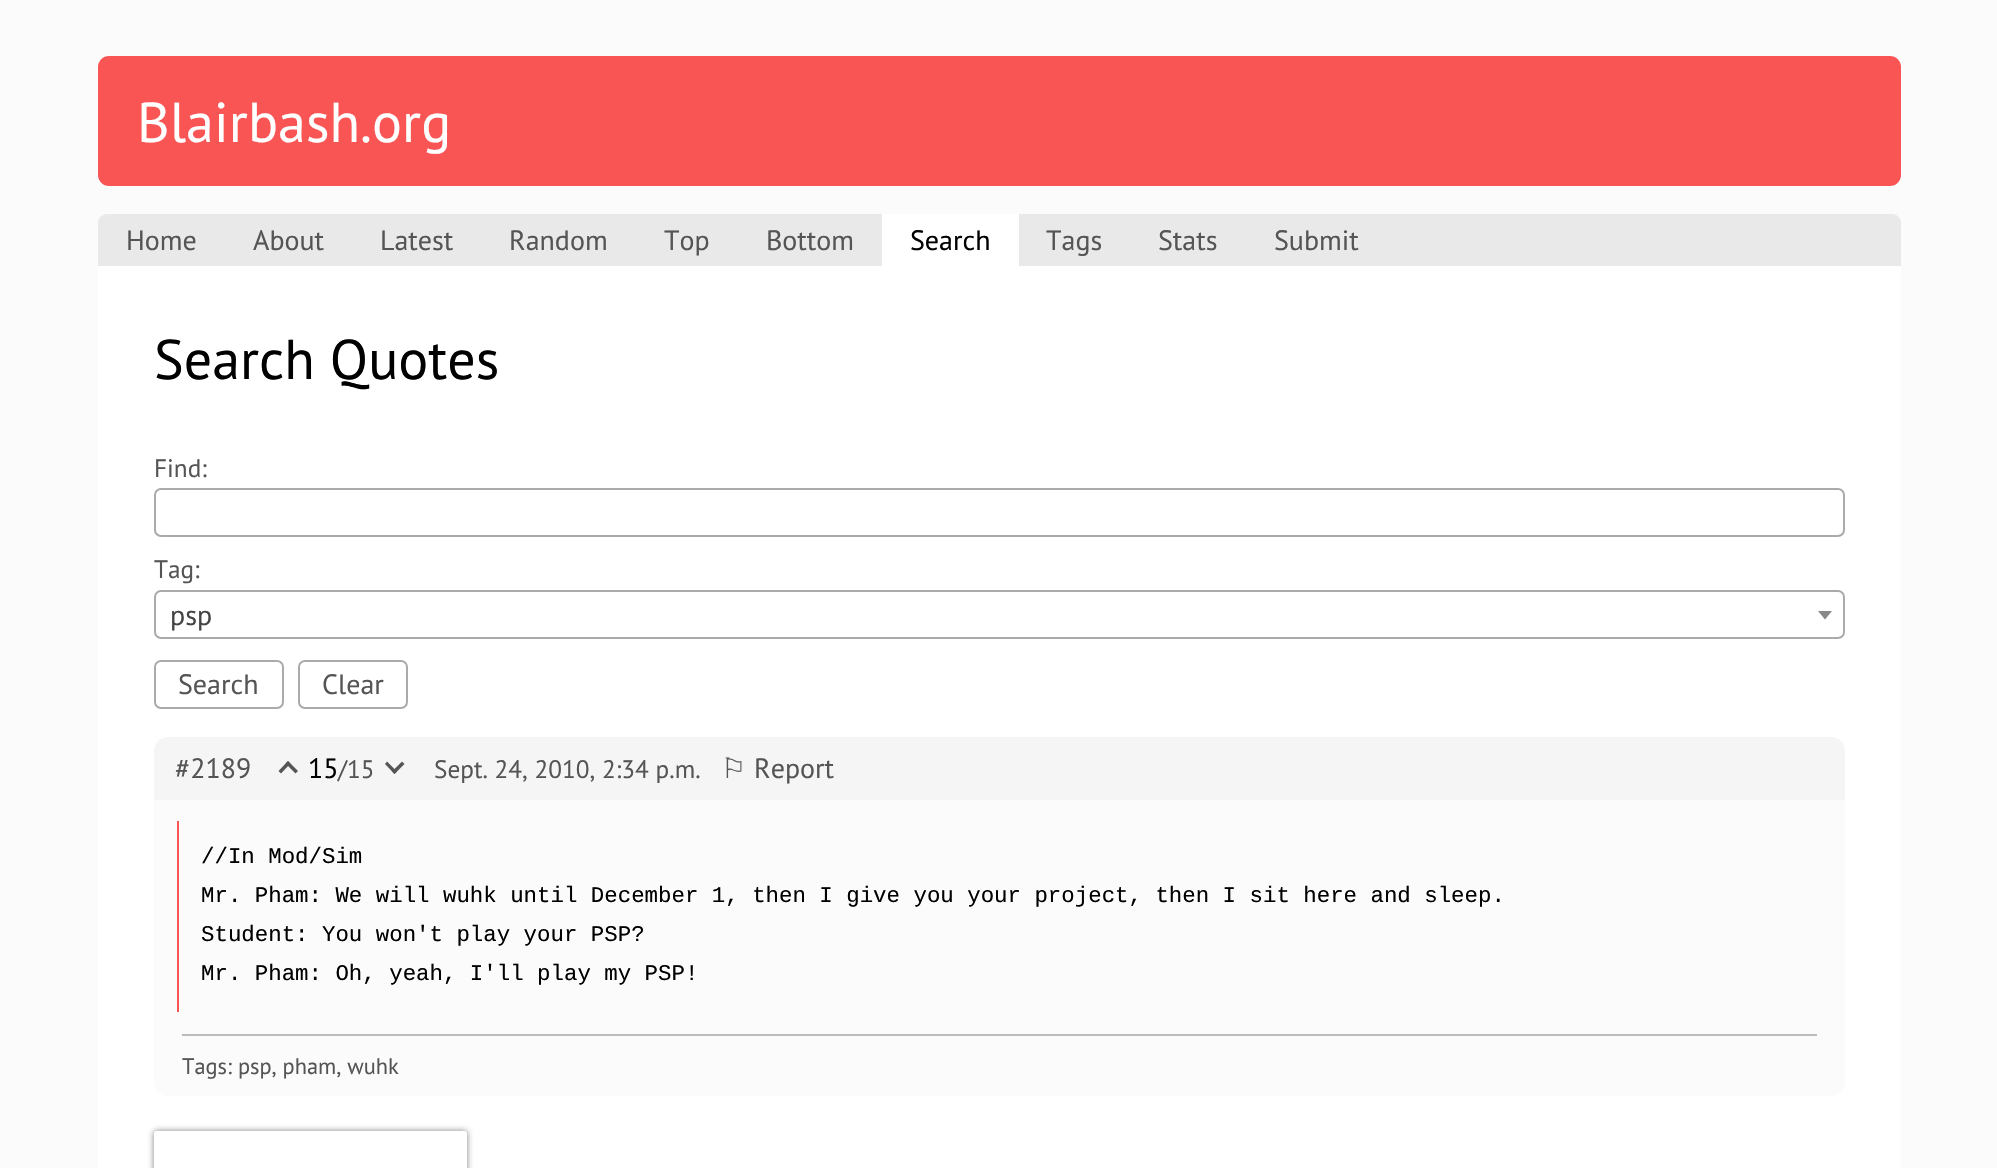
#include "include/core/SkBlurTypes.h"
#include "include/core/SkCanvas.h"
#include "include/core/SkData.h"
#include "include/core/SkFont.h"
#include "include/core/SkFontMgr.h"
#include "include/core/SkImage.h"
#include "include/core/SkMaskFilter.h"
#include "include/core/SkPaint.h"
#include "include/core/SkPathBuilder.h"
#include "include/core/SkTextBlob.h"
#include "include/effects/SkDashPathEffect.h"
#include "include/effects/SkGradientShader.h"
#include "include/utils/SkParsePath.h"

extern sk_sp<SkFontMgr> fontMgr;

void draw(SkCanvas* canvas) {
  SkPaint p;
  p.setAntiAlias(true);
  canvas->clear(SkColorSetRGB(251, 251, 251));
  p.setColor(SkColorSetRGB(250, 85, 85));
  canvas->drawRoundRect(SkRect::MakeLTRB(98, 56, 1901, 186), 11, 11, p);
  p.setColor(SkColorSetRGB(233, 233, 233));
  canvas->drawPath(SkPathBuilder().moveTo(107, 214).lineTo(1892, 214).cubicTo(1897, 214, 1901, 218, 1901, 223).lineTo(1901, 266).lineTo(98, 266).lineTo(98, 223).cubicTo(98, 218, 102, 214, 107, 214).close().detach(), p);
  p.setColor(SK_ColorWHITE);
  canvas->drawRect(SkRect::MakeLTRB(882, 214, 1019, 266), p);
  canvas->drawRect(SkRect::MakeLTRB(98, 266, 1901, 1168), p);
  p.setStyle(SkPaint::kStroke_Style);
  p.setStrokeWidth(2);
  p.setColor(SkColorSetRGB(170, 170, 170));
  canvas->drawRoundRect(SkRect::MakeLTRB(155, 489, 1844, 536), 6, 6, p);
  canvas->drawRoundRect(SkRect::MakeLTRB(155, 591, 1844, 638), 6, 6, p);
  p.setStyle(SkPaint::kFill_Style);
  p.setColor(SkColorSetRGB(136, 136, 136));
  canvas->drawPath(SkPathBuilder().moveTo(1818, 611).lineTo(1832, 611).lineTo(1825, 619.5f).close().detach(), p);
  p.setStyle(SkPaint::kStroke_Style);
  p.setColor(SkColorSetRGB(170, 170, 170));
  canvas->drawRoundRect(SkRect::MakeLTRB(155, 661, 283, 708), 6, 6, p);
  canvas->drawRoundRect(SkRect::MakeLTRB(299, 661, 407, 708), 6, 6, p);
  p.setStyle(SkPaint::kFill_Style);
  p.setColor(SkColorSetRGB(251, 251, 251));
  canvas->drawRoundRect(SkRect::MakeLTRB(154, 737, 1845, 1096), 14, 14, p);
  p.setColor(SkColorSetRGB(245, 245, 245));
  canvas->drawPath(SkPathBuilder().moveTo(168, 737).lineTo(1831, 737).cubicTo(1838.5f, 737, 1845, 743.5f, 1845, 751).lineTo(1845, 800).lineTo(154, 800).lineTo(154, 751).cubicTo(154, 743.5f, 160.5f, 737, 168, 737).close().detach(), p);
  p.setColor(SkColorSetRGB(85, 85, 85));
  canvas->drawPath(SkPathBuilder().moveTo(281, 773.5f).lineTo(278.5f, 771).lineTo(288, 761).lineTo(290.5f, 763.5f).close().detach(), p);
  canvas->drawPath(SkPathBuilder().moveTo(295.5f, 773.5f).lineTo(285.5f, 763.5f).lineTo(288, 761).lineTo(298, 771).close().detach(), p);
  canvas->drawPath(SkPathBuilder().moveTo(402, 761.5f).lineTo(404.5f, 764).lineTo(394.5f, 774).lineTo(392, 771.5f).close().detach(), p);
  canvas->drawPath(SkPathBuilder().moveTo(387, 761.5f).lineTo(397, 771.5f).lineTo(394.5f, 774).lineTo(385, 764).close().detach(), p);
  p.setColor(SkColorSetRGB(250, 85, 85));
  canvas->drawRect(SkRect::MakeLTRB(177, 821, 179, 1012), p);
  p.setColor(SkColorSetRGB(187, 187, 187));
  canvas->drawRect(SkRect::MakeLTRB(182, 1034, 1817, 1036), p);
  canvas->save();
  canvas->clipPath(SkPathBuilder(SkPathFillType::kEvenOdd).moveTo(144, 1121).lineTo(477, 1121).lineTo(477, 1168).lineTo(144, 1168).close().moveTo(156.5f, 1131).lineTo(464.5f, 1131).cubicTo(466, 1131, 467, 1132, 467, 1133.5f).lineTo(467, 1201.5f).cubicTo(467, 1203, 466, 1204, 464.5f, 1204).lineTo(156.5f, 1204).cubicTo(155, 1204, 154, 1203, 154, 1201.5f).lineTo(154, 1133.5f).cubicTo(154, 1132, 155, 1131, 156.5f, 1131).close().detach(), true);
  p.setColor(SkColorSetRGB(128, 128, 128));
  p.setMaskFilter(SkMaskFilter::MakeBlur(kNormal_SkBlurStyle, 3));
  canvas->drawRoundRect(SkRect::MakeLTRB(154, 1131, 467, 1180), 2.5f, 2.5f, p);
  p.setMaskFilter(nullptr);
  canvas->restore();
  SkFont font1(fontMgr->matchFamilyStyle("PT Sans", SkFontStyle::Normal()), 56);
  font1.setSubpixel(true);
  p.setColor(SK_ColorWHITE);
  canvas->drawString("Blairbash.org", 137, 142, font1, p);
  SkFont font2(fontMgr->matchFamilyStyle("PT Sans", SkFontStyle::Normal()), 28);
  font2.setSubpixel(true);
  p.setColor(SkColorSetRGB(85, 85, 85));
  canvas->drawString("Home", 126, 250, font2, p);
  canvas->drawString("About", 253, 250, font2, p);
  canvas->drawString("Latest", 380, 250, font2, p);
  canvas->drawString("Random", 509, 250, font2, p);
  canvas->drawString("Top", 664, 250, font2, p);
  canvas->drawString("Bottom", 766, 250, font2, p);
  p.setColor(SK_ColorBLACK);
  canvas->drawString("Search", 910, 250, font2, p);
  p.setColor(SkColorSetRGB(85, 85, 85));
  canvas->drawString("Tags", 1046, 250, font2, p);
  canvas->drawString("Stats", 1158, 250, font2, p);
  canvas->drawString("Submit", 1274, 250, font2, p);
  p.setColor(SK_ColorBLACK);
  canvas->drawString("Search Quotes", 154, 379, font1, p);
  SkFont font3(fontMgr->matchFamilyStyle("PT Sans", SkFontStyle::Normal()), 25.25f);
  font3.setSubpixel(true);
  p.setColor(SkColorSetRGB(85, 85, 85));
  canvas->drawString("Find:", 154, 477, font3, p);
  canvas->drawString("Tag:", 154, 578, font3, p);
  p.setColor(SkColorSetRGB(68, 68, 68));
  canvas->drawString("psp", 170, 625, font2, p);
  p.setColor(SkColorSetRGB(85, 85, 85));
  canvas->drawString("Search", 178, 694, font2, p);
  canvas->drawString("Clear", 322, 694, font2, p);
  canvas->drawString("#2189", 175, 778, font2, p);
  p.setColor(SK_ColorBLACK);
  canvas->drawString("15", 308, 778, font2, p);
  p.setColor(SkColorSetRGB(85, 85, 85));
  canvas->drawString("/15", 338, 778, font3, p);
  canvas->drawString("Sept. 24, 2010, 2:34 p.m.", 434, 778, font3, p);
  SkFont font4(fontMgr->matchFamilyStyle("DejaVu Sans", SkFontStyle::Normal()), 28);
  font4.setSubpixel(true);
  canvas->drawString("⚐", 721, 778, font4, p);
  canvas->drawString("Report", 754, 778, font2, p);
  SkFont font5(fontMgr->matchFamilyStyle("Liberation Mono", SkFontStyle::Normal()), 22.4f);
  font5.setSubpixel(true);
  p.setColor(SK_ColorBLACK);
  canvas->drawString("//In Mod/Sim", 201, 863, font5, p);
  canvas->drawString("Mr. Pham: We will wuhk until December 1, then I give you your project, then I sit here and sleep.", 201, 902, font5, p);
  canvas->drawString("Student: You won't play your PSP?", 201, 941, font5, p);
  canvas->drawString("Mr. Pham: Oh, yeah, I'll play my PSP!", 201, 980, font5, p);
  SkFont font6(fontMgr->matchFamilyStyle("PT Sans", SkFontStyle::Normal()), 22.4f);
  font6.setSubpixel(true);
  p.setColor(SkColorSetRGB(85, 85, 85));
  canvas->drawString("Tags: psp, pham, wuhk", 182, 1074, font6, p);
}
